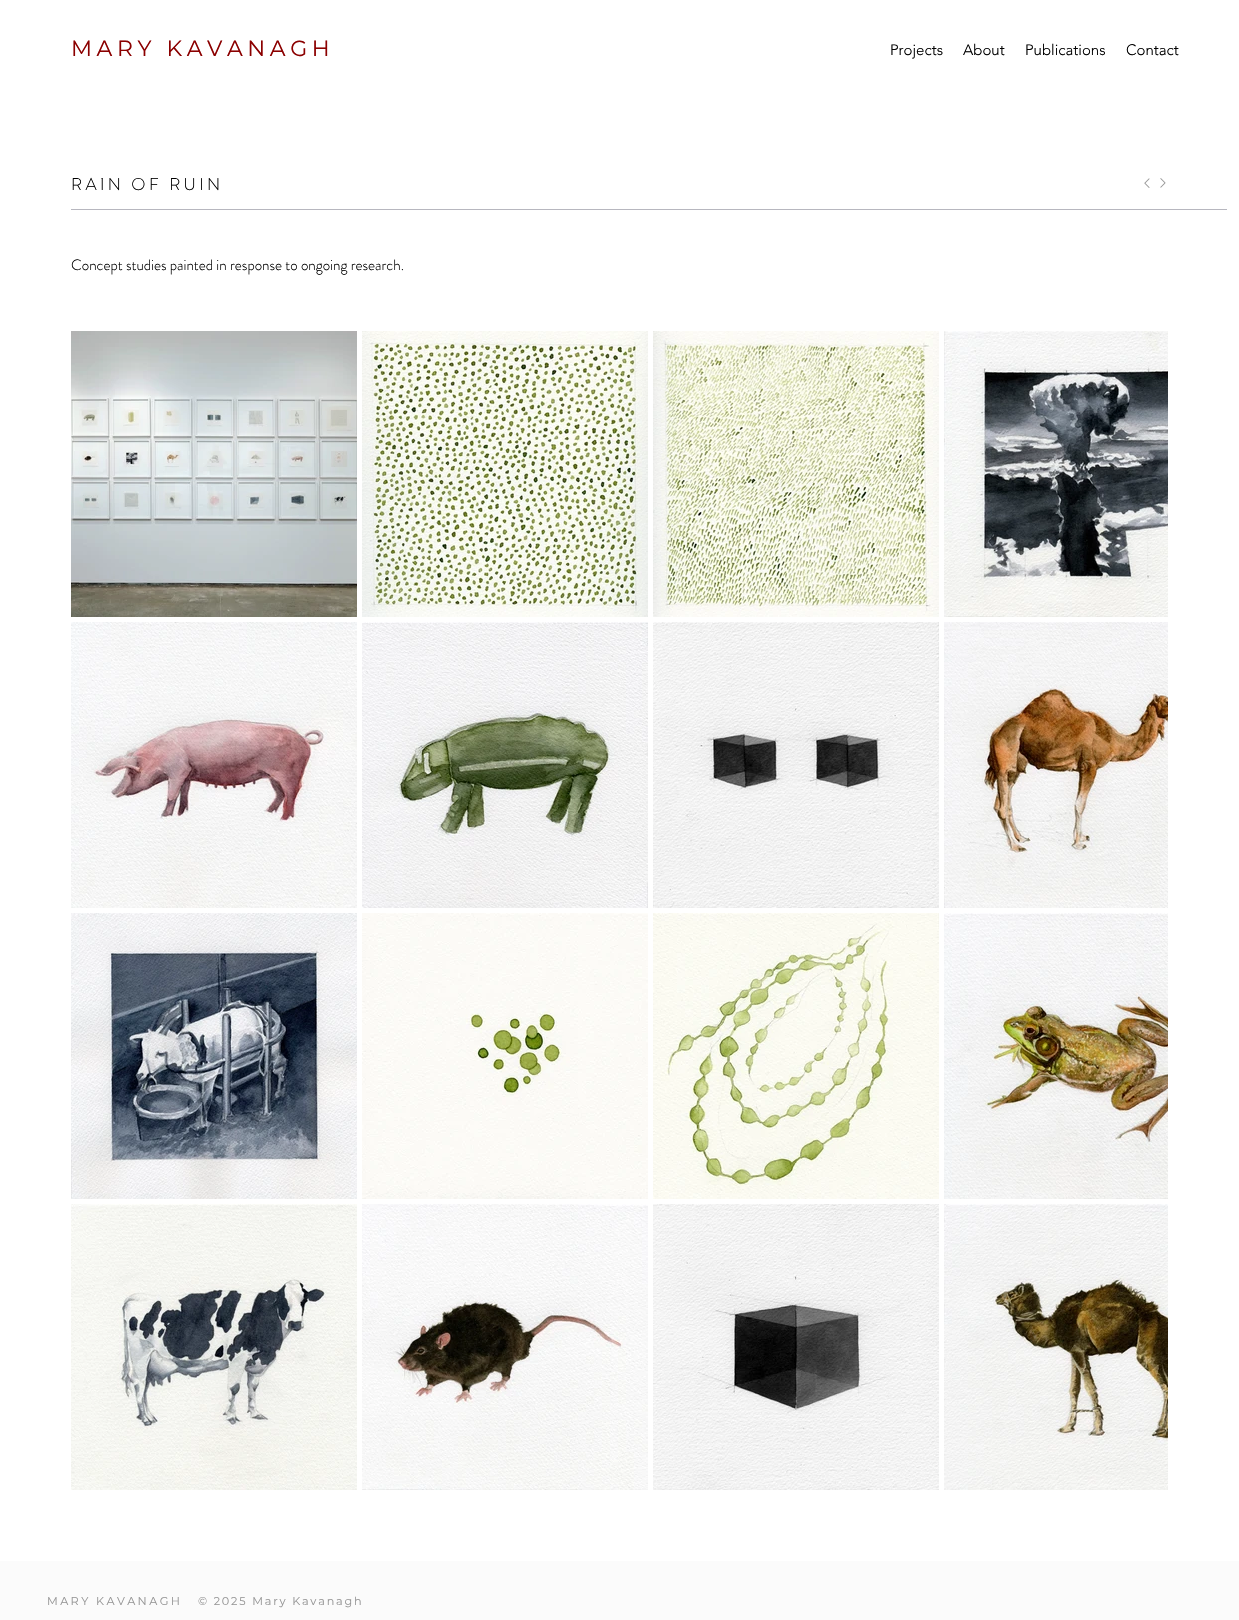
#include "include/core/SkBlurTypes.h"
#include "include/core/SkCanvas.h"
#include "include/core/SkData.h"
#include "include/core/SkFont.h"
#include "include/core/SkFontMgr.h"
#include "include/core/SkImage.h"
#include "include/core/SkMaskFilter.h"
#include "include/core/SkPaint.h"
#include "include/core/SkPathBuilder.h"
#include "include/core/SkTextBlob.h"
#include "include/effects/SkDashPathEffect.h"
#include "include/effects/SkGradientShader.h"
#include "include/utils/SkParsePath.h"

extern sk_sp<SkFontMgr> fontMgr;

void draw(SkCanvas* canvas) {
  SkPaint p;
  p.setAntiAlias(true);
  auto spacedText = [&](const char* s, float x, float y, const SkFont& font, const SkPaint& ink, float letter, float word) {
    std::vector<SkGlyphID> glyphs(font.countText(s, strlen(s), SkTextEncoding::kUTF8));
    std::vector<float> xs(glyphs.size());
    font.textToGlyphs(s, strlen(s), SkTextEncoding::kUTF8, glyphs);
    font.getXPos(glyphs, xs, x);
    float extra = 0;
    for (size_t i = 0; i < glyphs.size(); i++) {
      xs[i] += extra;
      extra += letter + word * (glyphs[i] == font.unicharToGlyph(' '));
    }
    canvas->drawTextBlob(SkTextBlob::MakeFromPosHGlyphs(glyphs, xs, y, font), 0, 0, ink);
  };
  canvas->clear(SK_ColorWHITE);
  canvas->drawImageRect(SkImages::DeferredFromEncodedData(SkData::MakeFromFileName("images/1.png")), SkRect::MakeLTRB(1144, 178, 1150, 188), SkSamplingOptions());
  canvas->drawImageRect(SkImages::DeferredFromEncodedData(SkData::MakeFromFileName("images/2.png")), SkRect::MakeLTRB(1160, 178, 1166, 188), SkSamplingOptions());
  p.setColor(SkColorSetRGB(183, 183, 191));
  canvas->drawRect(SkRect::MakeLTRB(71, 209, 1227, 210), p);
  canvas->drawImageRect(SkImages::DeferredFromEncodedData(SkData::MakeFromFileName("images/3.png")), SkRect::MakeLTRB(71, 331, 357, 617), SkSamplingOptions());
  canvas->drawImageRect(SkImages::DeferredFromEncodedData(SkData::MakeFromFileName("images/4.png")), SkRect::MakeLTRB(362, 331, 648, 617), SkSamplingOptions());
  canvas->drawImageRect(SkImages::DeferredFromEncodedData(SkData::MakeFromFileName("images/5.png")), SkRect::MakeLTRB(653, 331, 939, 617), SkSamplingOptions());
  canvas->drawImageRect(SkImages::DeferredFromEncodedData(SkData::MakeFromFileName("images/6.png")), SkRect::MakeLTRB(944, 331, 1168, 617), SkSamplingOptions());
  canvas->drawImageRect(SkImages::DeferredFromEncodedData(SkData::MakeFromFileName("images/7.png")), SkRect::MakeLTRB(71, 622, 357, 908), SkSamplingOptions());
  canvas->drawImageRect(SkImages::DeferredFromEncodedData(SkData::MakeFromFileName("images/8.png")), SkRect::MakeLTRB(362, 622, 648, 908), SkSamplingOptions());
  canvas->drawImageRect(SkImages::DeferredFromEncodedData(SkData::MakeFromFileName("images/9.png")), SkRect::MakeLTRB(653, 622, 939, 908), SkSamplingOptions());
  canvas->drawImageRect(SkImages::DeferredFromEncodedData(SkData::MakeFromFileName("images/10.png")), SkRect::MakeLTRB(944, 622, 1168, 908), SkSamplingOptions());
  canvas->drawImageRect(SkImages::DeferredFromEncodedData(SkData::MakeFromFileName("images/11.png")), SkRect::MakeLTRB(71, 913, 357, 1199), SkSamplingOptions());
  canvas->drawImageRect(SkImages::DeferredFromEncodedData(SkData::MakeFromFileName("images/12.png")), SkRect::MakeLTRB(362, 913, 648, 1199), SkSamplingOptions());
  canvas->drawImageRect(SkImages::DeferredFromEncodedData(SkData::MakeFromFileName("images/13.png")), SkRect::MakeLTRB(653, 913, 939, 1199), SkSamplingOptions());
  canvas->drawImageRect(SkImages::DeferredFromEncodedData(SkData::MakeFromFileName("images/14.png")), SkRect::MakeLTRB(944, 913, 1168, 1199), SkSamplingOptions());
  canvas->drawImageRect(SkImages::DeferredFromEncodedData(SkData::MakeFromFileName("images/15.png")), SkRect::MakeLTRB(71, 1204, 357, 1490), SkSamplingOptions());
  canvas->drawImageRect(SkImages::DeferredFromEncodedData(SkData::MakeFromFileName("images/16.png")), SkRect::MakeLTRB(362, 1204, 648, 1490), SkSamplingOptions());
  canvas->drawImageRect(SkImages::DeferredFromEncodedData(SkData::MakeFromFileName("images/17.png")), SkRect::MakeLTRB(653, 1204, 939, 1490), SkSamplingOptions());
  canvas->drawImageRect(SkImages::DeferredFromEncodedData(SkData::MakeFromFileName("images/18.png")), SkRect::MakeLTRB(944, 1204, 1168, 1490), SkSamplingOptions());
  p.setColor(SkColorSetRGB(251, 251, 251));
  canvas->drawRect(SkRect::MakeLTRB(0, 1561, 1239, 1620), p);
  SkFont font1(fontMgr->matchFamilyStyle("Montserrat", SkFontStyle::Normal()), 22);
  font1.setSubpixel(true);
  p.setColor(SkColorSetRGB(139, 0, 0));
  spacedText("MARY KAVANAGH", 71, 56, font1, p, 4.6f, 0);
  SkFont font2(fontMgr->matchFamilyStyle("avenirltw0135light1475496", SkFontStyle(300, SkFontStyle::kNormal_Width, SkFontStyle::kUpright_Slant)), 15);
  font2.setSubpixel(true);
  p.setColor(SK_ColorBLACK);
  canvas->drawString("Projects", 890, 55, font2, p);
  canvas->drawString("About", 963, 55, font2, p);
  canvas->drawString("Publications", 1025, 55, font2, p);
  canvas->drawString("Contact", 1126, 55, font2, p);
  SkFont font3(fontMgr->matchFamilyStyle("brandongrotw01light", SkFontStyle(300, SkFontStyle::kNormal_Width, SkFontStyle::kUpright_Slant)), 17);
  font3.setSubpixel(true);
  spacedText("RAIN OF RUIN", 71, 190, font3, p, 3.4f, 0);
  SkFont font4(fontMgr->matchFamilyStyle("brandongrotw01light", SkFontStyle(300, SkFontStyle::kNormal_Width, SkFontStyle::kUpright_Slant)), 15);
  font4.setSubpixel(true);
  canvas->drawString("Concept studies painted in response to ongoing research.", 71, 270, font4, p);
  SkFont font5(fontMgr->matchFamilyStyle("Montserrat", SkFontStyle::Normal()), 11.25f);
  font5.setSubpixel(true);
  p.setColor(SkColorSetRGB(151, 151, 151));
  spacedText("MARY KAVANAGH", 47, 1605, font5, p, 2.4f, 0);
  spacedText("© 2025 Mary Kavanagh", 198, 1605, font5, p, 1.8f, 0);
}
